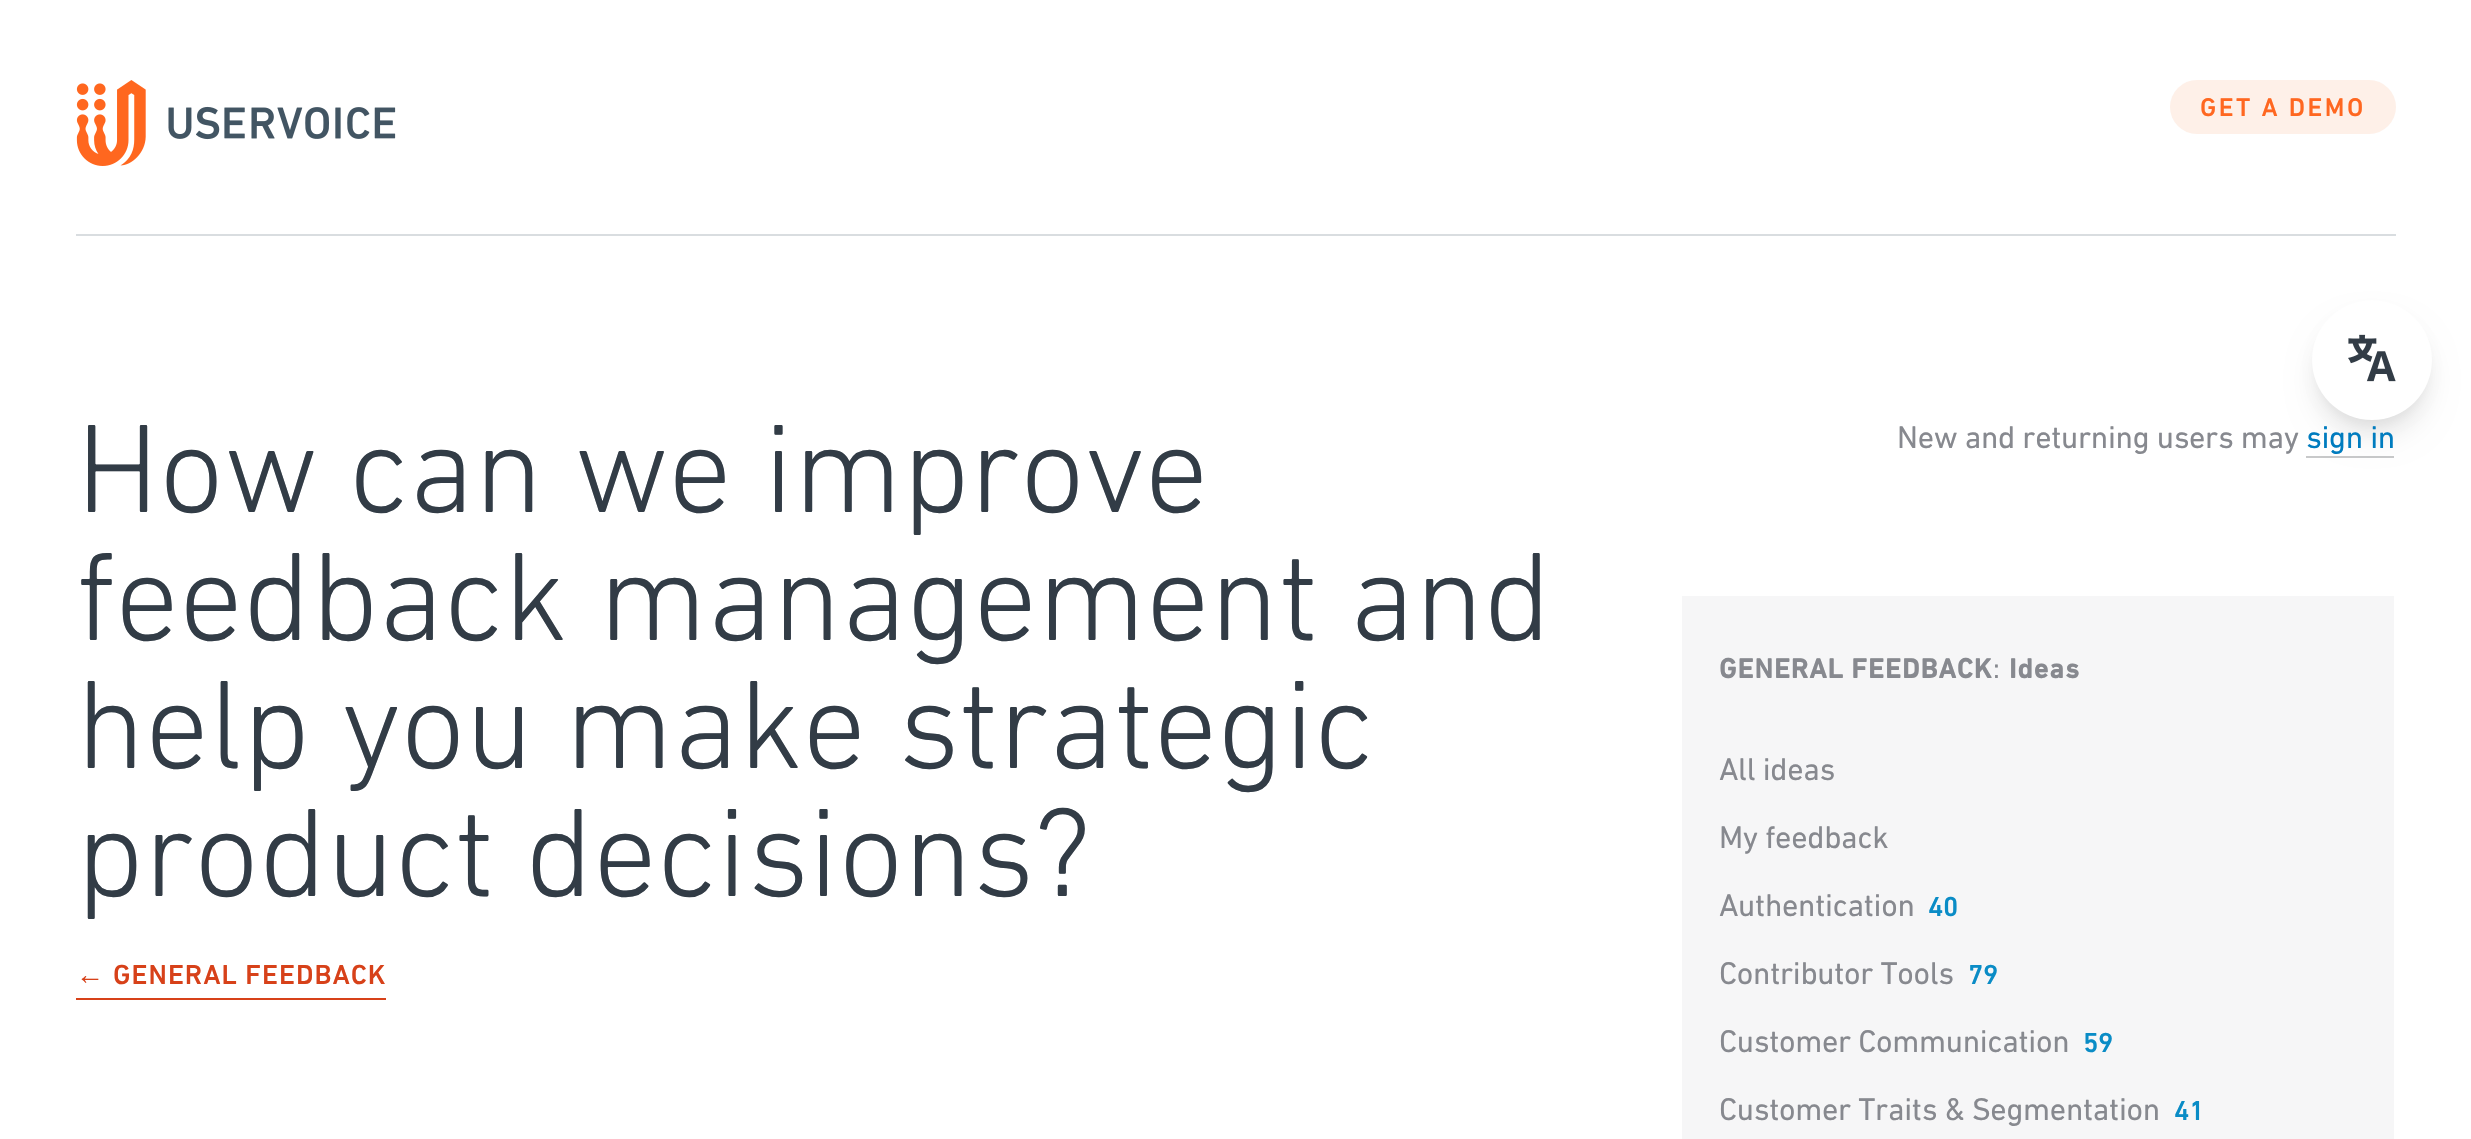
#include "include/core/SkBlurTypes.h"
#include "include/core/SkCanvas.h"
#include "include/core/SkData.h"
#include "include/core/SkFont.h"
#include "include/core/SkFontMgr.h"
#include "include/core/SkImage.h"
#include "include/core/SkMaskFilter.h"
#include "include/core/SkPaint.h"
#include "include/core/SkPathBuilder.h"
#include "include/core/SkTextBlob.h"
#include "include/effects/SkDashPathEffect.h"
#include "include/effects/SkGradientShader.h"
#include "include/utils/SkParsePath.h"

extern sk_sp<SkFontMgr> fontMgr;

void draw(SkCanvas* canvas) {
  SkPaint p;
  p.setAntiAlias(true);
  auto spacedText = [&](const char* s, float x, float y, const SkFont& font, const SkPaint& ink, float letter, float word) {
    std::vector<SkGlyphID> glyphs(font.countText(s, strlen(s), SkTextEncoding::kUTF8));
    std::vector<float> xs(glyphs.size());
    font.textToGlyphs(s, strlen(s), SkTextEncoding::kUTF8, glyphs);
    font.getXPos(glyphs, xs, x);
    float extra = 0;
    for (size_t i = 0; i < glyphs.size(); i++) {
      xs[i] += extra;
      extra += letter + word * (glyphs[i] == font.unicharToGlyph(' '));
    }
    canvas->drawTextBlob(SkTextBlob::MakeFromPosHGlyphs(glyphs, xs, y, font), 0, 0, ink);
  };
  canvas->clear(SK_ColorWHITE);
  canvas->drawImageRect(SkImages::DeferredFromEncodedData(SkData::MakeFromFileName("images/1.png")), SkRect::MakeLTRB(76, 80, 396, 166), SkSamplingOptions());
  p.setColor(SkColorSetRGB(254, 240, 232));
  canvas->drawRoundRect(SkRect::MakeLTRB(2170, 80, 2396, 134), 27, 27, p);
  p.setColor(SkColorSetRGB(217, 221, 224));
  canvas->drawRect(SkRect::MakeLTRB(76, 234, 2396, 236), p);
  p.setColor(SkColorSetRGB(215, 65, 25));
  canvas->drawRect(SkRect::MakeLTRB(76, 998, 386, 1000), p);
  p.setColor(SkColorSetRGB(200, 201, 202));
  canvas->drawRect(SkRect::MakeLTRB(2306, 456, 2394, 458), p);
  p.setColor(SkColorSetRGB(246, 246, 247));
  canvas->drawRect(SkRect::MakeLTRB(1682, 596, 2394, 1139), p);
  p.setColor(SkColorSetARGB(13, 0, 0, 0));
  p.setMaskFilter(SkMaskFilter::MakeBlur(kNormal_SkBlurStyle, 6));
  canvas->drawRoundRect(SkRect::MakeLTRB(2316, 312, 2428, 424), 56, 56, p);
  p.setMaskFilter(nullptr);
  p.setColor(SkColorSetARGB(26, 0, 0, 0));
  p.setMaskFilter(SkMaskFilter::MakeBlur(kNormal_SkBlurStyle, 15));
  canvas->drawRoundRect(SkRect::MakeLTRB(2318, 326, 2426, 434), 54, 54, p);
  p.setMaskFilter(nullptr);
  p.setColor(SK_ColorWHITE);
  canvas->drawCircle(2372, 360, 60, p);
  canvas->drawImageRect(SkImages::DeferredFromEncodedData(SkData::MakeFromFileName("images/2.png")), SkRect::MakeLTRB(2348, 334, 2396, 382), SkSamplingOptions());
  SkFont font1(fontMgr->matchFamilyStyle("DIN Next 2", SkFontStyle::Normal()), 26);
  font1.setSubpixel(true);
  p.setColor(SkColorSetRGB(255, 103, 32));
  spacedText("GET A DEMO", 2200, 116, font1, p, 2.5f, 0);
  SkFont font2(fontMgr->matchFamilyStyle("DIN Next", SkFontStyle::Normal()), 128);
  font2.setSubpixel(true);
  p.setColor(SkColorSetRGB(50, 60, 70));
  spacedText("How can we improve", 76, 512, font2, p, -0.3f, 0);
  spacedText("feedback management and", 76, 640, font2, p, -0.3f, 0);
  spacedText("help you make strategic", 76, 768, font2, p, -0.3f, 0);
  spacedText("product decisions?", 76, 896, font2, p, -0.3f, 0);
  SkFont font3(fontMgr->matchFamilyStyle("Liberation Sans", SkFontStyle::Normal()), 28);
  font3.setSubpixel(true);
  p.setColor(SkColorSetRGB(215, 65, 25));
  spacedText("←", 76, 984, font3, p, 1, 0);
  SkFont font4(fontMgr->matchFamilyStyle("DIN Next 2", SkFontStyle::Normal()), 28);
  font4.setSubpixel(true);
  spacedText("GENERAL FEEDBACK", 113, 984, font4, p, 1, 0);
  SkFont font5(fontMgr->matchFamilyStyle("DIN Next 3", SkFontStyle::Normal()), 32);
  font5.setSubpixel(true);
  p.setColor(SkColorSetRGB(135, 137, 143));
  spacedText("New and returning users may", 1897, 448, font5, p, -0.3f, 0);
  p.setColor(SkColorSetRGB(0, 124, 191));
  spacedText("sign in", 2306, 448, font5, p, -0.3f, 0);
  SkFont font6(fontMgr->matchFamilyStyle("DIN Next", SkFontStyle::Bold()), 28);
  font6.setSubpixel(true);
  p.setColor(SkColorSetRGB(135, 137, 143));
  spacedText("GENERAL FEEDBACK", 1719, 678, font6, p, 1, 0);
  SkFont font7(fontMgr->matchFamilyStyle("DIN Next 3", SkFontStyle::Normal()), 28);
  font7.setSubpixel(true);
  spacedText(":", 1993, 678, font7, p, 1, 0);
  spacedText("Ideas", 2009, 678, font6, p, 1, 0);
  spacedText("All ideas", 1719, 780, font5, p, -0.3f, 0);
  spacedText("My feedback", 1719, 848, font5, p, -0.3f, 0);
  spacedText("Authentication", 1719, 916, font5, p, -0.3f, 0);
  p.setColor(SkColorSetRGB(10, 140, 198));
  spacedText("40", 1928, 916, font4, p, -0.3f, 0);
  p.setColor(SkColorSetRGB(135, 137, 143));
  spacedText("Contributor Tools", 1719, 984, font5, p, -0.3f, 0);
  p.setColor(SkColorSetRGB(10, 140, 198));
  spacedText("79", 1968, 984, font4, p, -0.3f, 0);
  p.setColor(SkColorSetRGB(135, 137, 143));
  spacedText("Customer Communication", 1719, 1052, font5, p, -0.3f, 0);
  p.setColor(SkColorSetRGB(10, 140, 198));
  spacedText("59", 2083, 1052, font4, p, -0.3f, 0);
  p.setColor(SkColorSetRGB(135, 137, 143));
  spacedText("Customer Traits & Segmentation", 1719, 1120, font5, p, -0.3f, 0);
  p.setColor(SkColorSetRGB(10, 140, 198));
  spacedText("41", 2174, 1120, font4, p, -0.3f, 0);
}
